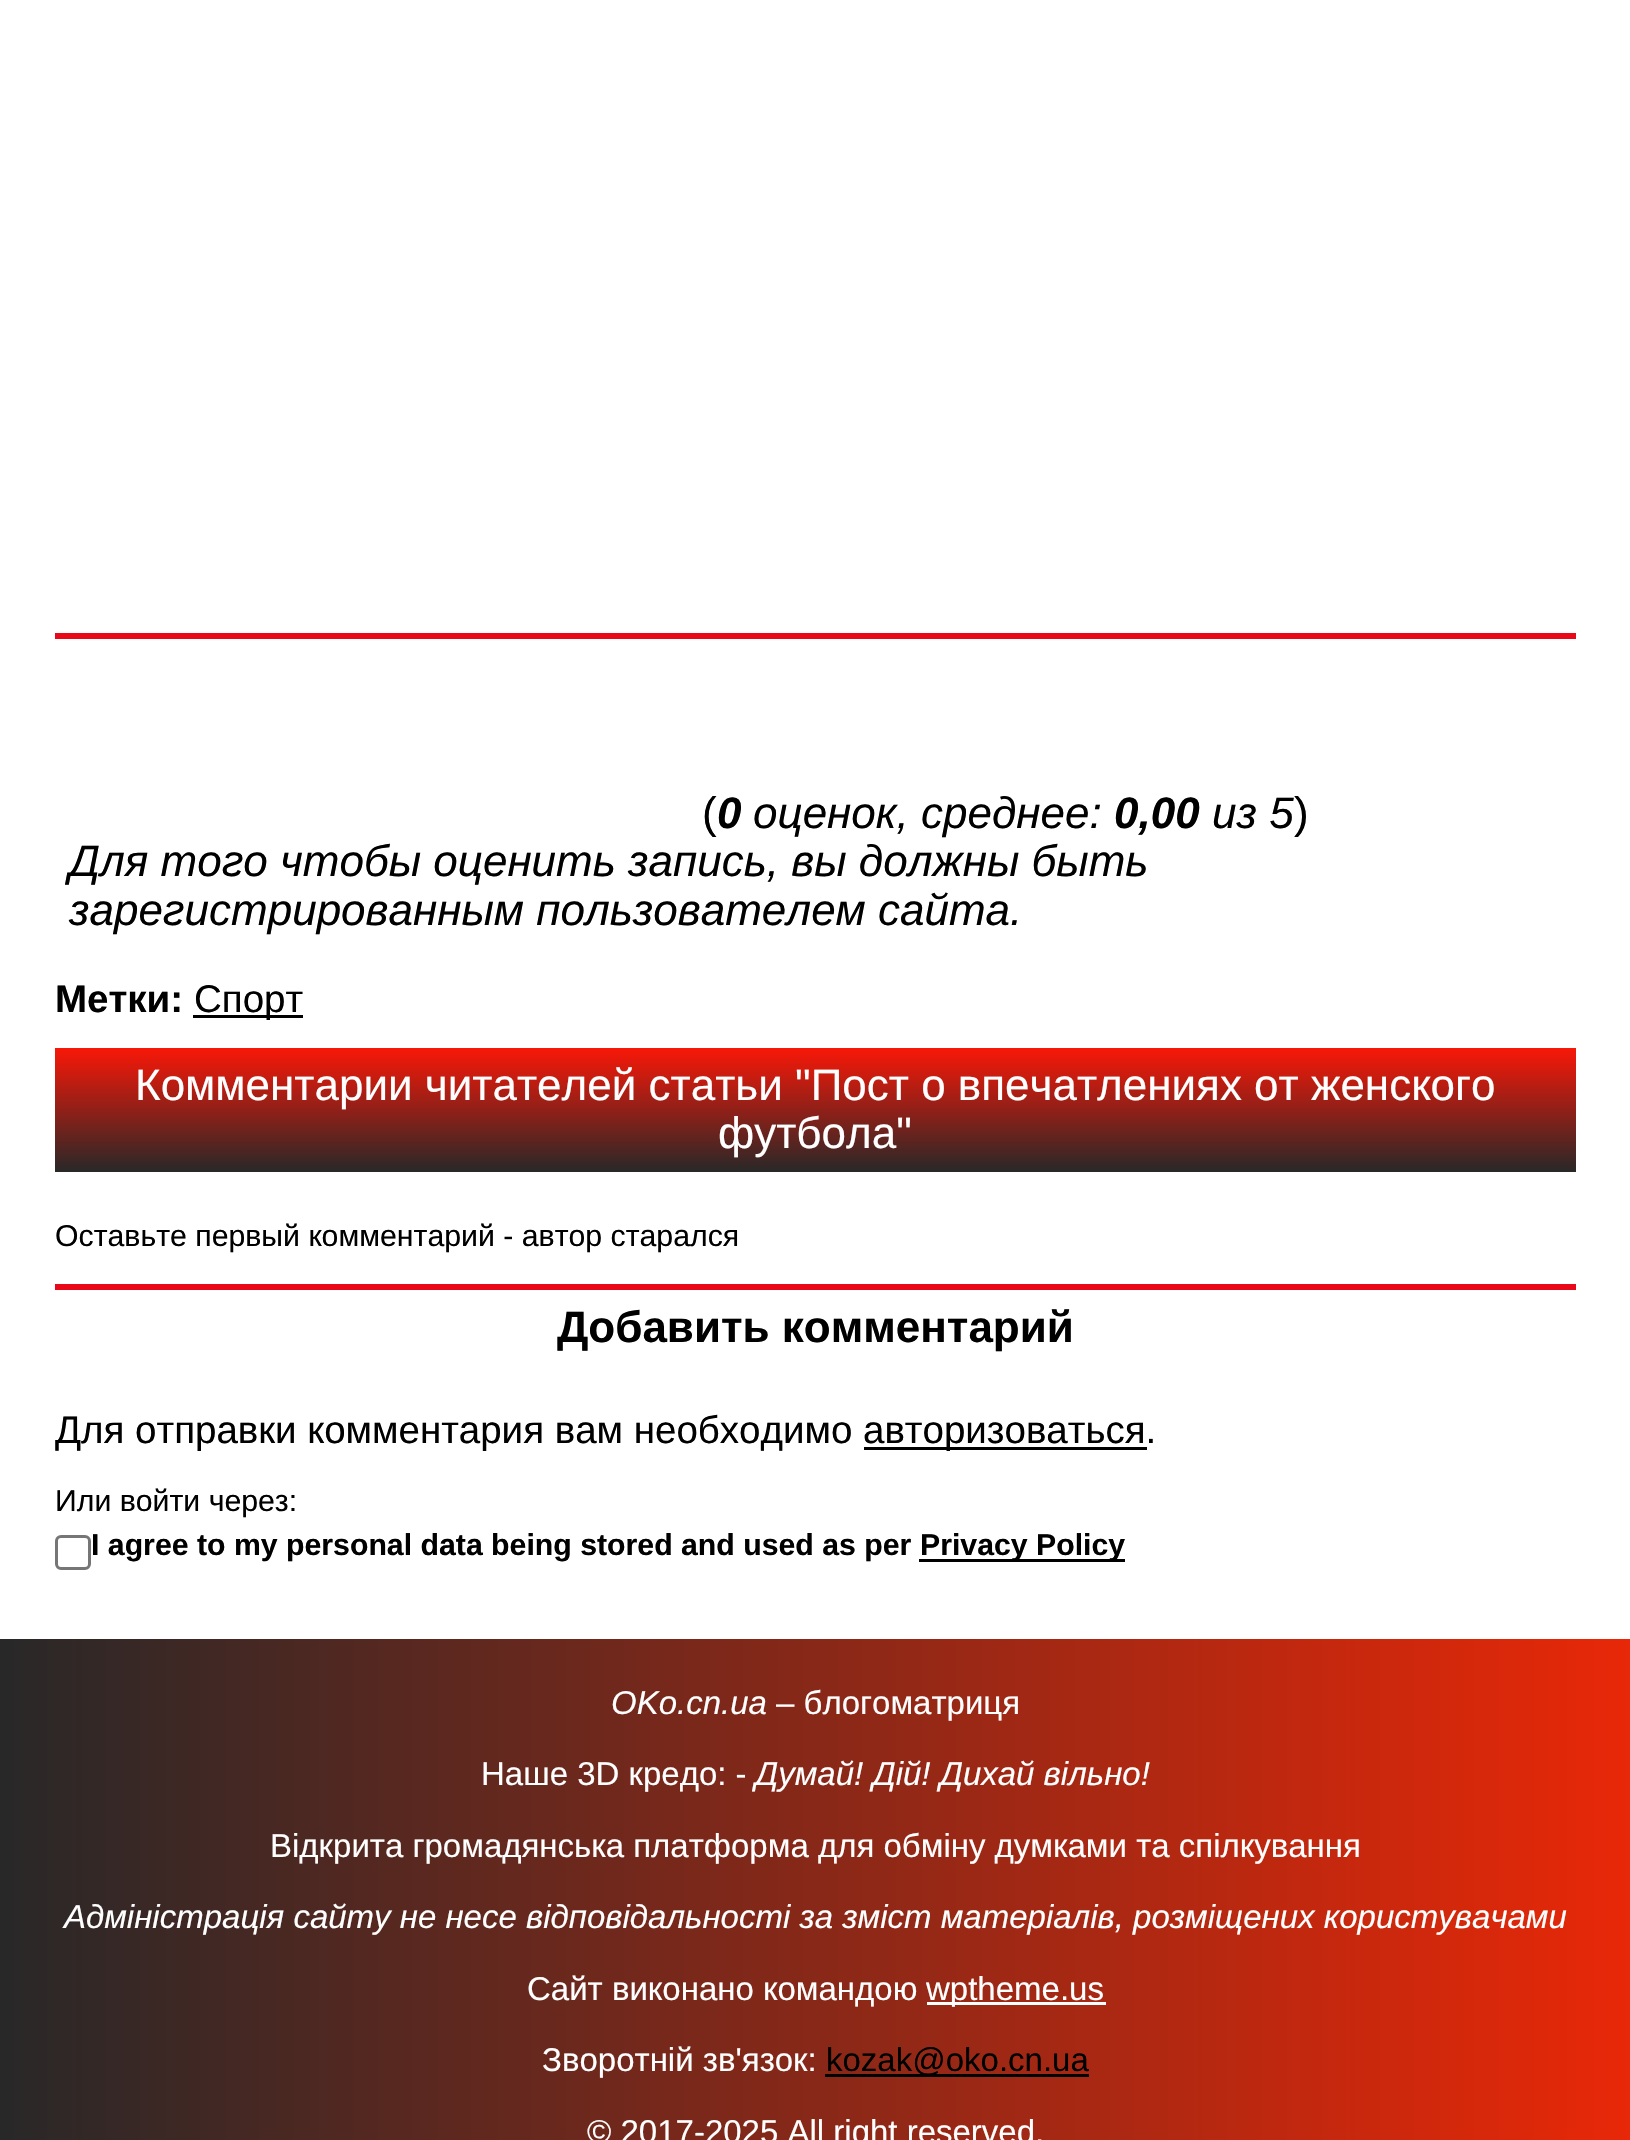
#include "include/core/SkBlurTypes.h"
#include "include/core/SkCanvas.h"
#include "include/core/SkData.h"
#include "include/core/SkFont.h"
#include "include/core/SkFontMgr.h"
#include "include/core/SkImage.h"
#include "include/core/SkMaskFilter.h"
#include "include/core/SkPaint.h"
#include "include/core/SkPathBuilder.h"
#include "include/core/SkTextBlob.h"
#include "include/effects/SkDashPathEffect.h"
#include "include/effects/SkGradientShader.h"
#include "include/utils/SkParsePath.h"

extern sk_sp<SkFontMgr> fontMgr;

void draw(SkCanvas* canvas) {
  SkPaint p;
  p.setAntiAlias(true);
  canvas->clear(SK_ColorWHITE);
  p.setColor(SkColorSetRGB(232, 8, 24));
  canvas->drawRect(SkRect::MakeLTRB(55, 633, 1576, 639), p);
  p.setColor(SK_ColorBLACK);
  canvas->drawRect(SkRect::MakeLTRB(193, 1015, 303, 1018), p);
  {
    const SkColor colors[] = {SkColorSetRGB(248, 24, 8), SkColorSetRGB(40, 40, 40)};
    const float stops[] = {0, 1};
    const SkPoint ends[] = {{815, 1048}, {815, 1172}};
    p.setShader(SkGradientShader::MakeLinear(ends, colors, stops, 2, SkTileMode::kClamp));
    p.setAlpha(255);
  }
  canvas->drawRect(SkRect::MakeLTRB(55, 1048, 1576, 1172), p);
  p.setShader(nullptr);
  p.setColor(SkColorSetRGB(232, 8, 24));
  canvas->drawRect(SkRect::MakeLTRB(55, 1284, 1576, 1290), p);
  p.setColor(SK_ColorBLACK);
  canvas->drawRect(SkRect::MakeLTRB(864, 1447, 1147, 1450), p);
  p.setStyle(SkPaint::kStroke_Style);
  p.setStrokeWidth(3);
  p.setColor(SkColorSetRGB(118, 118, 118));
  canvas->drawRoundRect(SkRect::MakeLTRB(56.5f, 1536.5f, 89.5f, 1568.5f), 4.5f, 4.5f, p);
  p.setStyle(SkPaint::kFill_Style);
  p.setColor(SK_ColorBLACK);
  canvas->drawRect(SkRect::MakeLTRB(919, 1559, 1125, 1562), p);
  {
    const SkColor colors[] = {SkColorSetRGB(40, 40, 40), SkColorSetRGB(232, 40, 8)};
    const float stops[] = {0, 1};
    const SkPoint ends[] = {{0, 1924}, {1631, 1924}};
    p.setShader(SkGradientShader::MakeLinear(ends, colors, stops, 2, SkTileMode::kClamp));
    p.setAlpha(255);
  }
  canvas->drawRect(SkRect::MakeLTRB(0, 1639, 1630, 2140), p);
  p.setShader(nullptr);
  p.setColor(SK_ColorWHITE);
  canvas->drawRect(SkRect::MakeLTRB(927, 2002, 1106, 2005), p);
  p.setColor(SK_ColorBLACK);
  canvas->drawRect(SkRect::MakeLTRB(825, 2074, 1089, 2077), p);
  SkFont font1(fontMgr->matchFamilyStyle("Liberation Sans", SkFontStyle::Normal()), 44);
  font1.setSubpixel(true);
  canvas->drawString("(", 702, 828, font1, p);
  SkFont font2(fontMgr->matchFamilyStyle("Liberation Sans", SkFontStyle::BoldItalic()), 44);
  font2.setSubpixel(true);
  canvas->drawString("0", 717, 828, font2, p);
  SkFont font3(fontMgr->matchFamilyStyle("Liberation Sans", SkFontStyle::Italic()), 44);
  font3.setSubpixel(true);
  canvas->drawString("оценок, среднее:", 753, 828, font3, p);
  canvas->drawString("0,00", 1114, 828, font2, p);
  canvas->drawString("из 5", 1212, 828, font3, p);
  canvas->drawString(")", 1294, 828, font1, p);
  canvas->drawString("Для того чтобы оценить запись, вы должны быть", 69, 876, font3, p);
  canvas->drawString("зарегистрированным пользователем сайта.", 69, 925, font3, p);
  SkFont font4(fontMgr->matchFamilyStyle("Liberation Sans", SkFontStyle::Bold()), 38.5f);
  font4.setSubpixel(true);
  canvas->drawString("Метки:", 55, 1012, font4, p);
  SkFont font5(fontMgr->matchFamilyStyle("Liberation Sans", SkFontStyle::Normal()), 38.5f);
  font5.setSubpixel(true);
  canvas->drawString("Спорт", 194, 1012, font5, p);
  p.setColor(SK_ColorWHITE);
  canvas->drawString("Комментарии читателей статьи \"Пост о впечатлениях от женского", 135, 1100, font1, p);
  canvas->drawString("футбола\"", 718, 1148, font1, p);
  SkFont font6(fontMgr->matchFamilyStyle("Liberation Sans", SkFontStyle::Normal()), 30.25f);
  font6.setSubpixel(true);
  p.setColor(SK_ColorBLACK);
  canvas->drawString("Оставьте первый комментарий - автор старался", 55, 1246, font6, p);
  SkFont font7(fontMgr->matchFamilyStyle("Liberation Sans", SkFontStyle::Bold()), 44);
  font7.setSubpixel(true);
  canvas->drawString("Добавить комментарий", 557, 1342, font7, p);
  canvas->drawString("Для отправки комментария вам необходимо", 55, 1443, font5, p);
  canvas->drawString("авторизоваться.", 863, 1443, font5, p);
  canvas->drawString("Или войти через:", 55, 1511, font6, p);
  SkFont font8(fontMgr->matchFamilyStyle("Liberation Sans", SkFontStyle::Bold()), 30.25f);
  font8.setSubpixel(true);
  canvas->drawString("I agree to my personal data being stored and used as per", 91, 1555, font8, p);
  canvas->drawString("Privacy Policy", 920, 1555, font8, p);
  SkFont font9(fontMgr->matchFamilyStyle("Liberation Sans", SkFontStyle::Italic()), 33);
  font9.setSubpixel(true);
  p.setColor(SK_ColorWHITE);
  canvas->drawString("OKo.cn.ua", 611, 1714, font9, p);
  SkFont font10(fontMgr->matchFamilyStyle("Liberation Sans", SkFontStyle::Normal()), 33);
  font10.setSubpixel(true);
  canvas->drawString("– блогоматриця", 776, 1714, font10, p);
  canvas->drawString("Наше 3D кредо: -", 481, 1785, font10, p);
  canvas->drawString("Думай! Дій! Дихай вільно!", 755, 1785, font9, p);
  canvas->drawString("Відкрита громадянська платформа для обміну думками та спілкування", 270, 1857, font10, p);
  canvas->drawString("Адміністрація сайту не несе відповідальності за зміст матеріалів, розміщених користувачами", 64, 1928, font9, p);
  canvas->drawString("Сайт виконано командою", 527, 2000, font10, p);
  canvas->drawString("wptheme.us", 926, 2000, font10, p);
  canvas->drawString("Зворотній зв'язок:", 542, 2071, font10, p);
  p.setColor(SK_ColorBLACK);
  canvas->drawString("kozak@oko.cn.ua", 826, 2071, font10, p);
  p.setColor(SK_ColorWHITE);
  canvas->drawString("© 2017-2025 All right reserved.", 587, 2143, font10, p);
}
